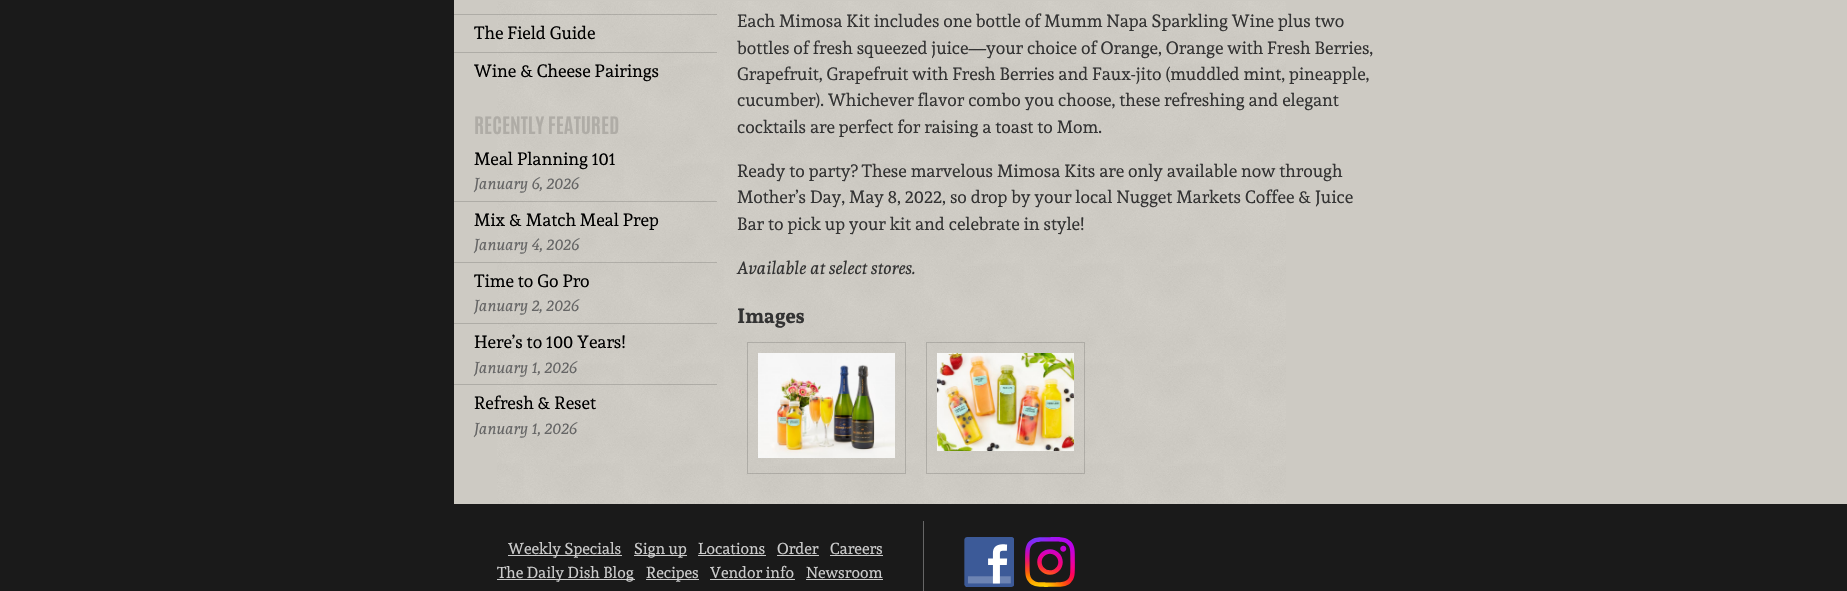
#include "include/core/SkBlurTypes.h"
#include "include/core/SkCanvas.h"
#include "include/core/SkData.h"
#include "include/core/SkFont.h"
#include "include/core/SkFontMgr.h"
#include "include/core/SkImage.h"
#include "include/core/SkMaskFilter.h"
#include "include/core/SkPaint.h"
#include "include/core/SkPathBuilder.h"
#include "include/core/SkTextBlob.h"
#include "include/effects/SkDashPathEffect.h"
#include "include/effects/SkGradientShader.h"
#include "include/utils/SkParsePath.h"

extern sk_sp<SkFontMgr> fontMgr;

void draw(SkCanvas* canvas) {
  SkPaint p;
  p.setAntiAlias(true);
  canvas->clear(SkColorSetRGB(26, 26, 26));
  p.setColor(SkColorSetRGB(205, 202, 195));
  canvas->drawRect(SkRect::MakeLTRB(454, 0, 1847, 504), p);
  canvas->drawImageRect(SkImages::DeferredFromEncodedData(SkData::MakeFromFileName("images/1.png")), SkRect::MakeLTRB(497, 1, 1286, 504), SkSamplingOptions());
  p.setColor(SkColorSetARGB(38, 0, 0, 0));
  canvas->drawRect(SkRect::MakeLTRB(454, 14, 717, 15), p);
  canvas->drawRect(SkRect::MakeLTRB(454, 52, 717, 53), p);
  canvas->drawRect(SkRect::MakeLTRB(454, 201, 717, 202), p);
  canvas->drawRect(SkRect::MakeLTRB(454, 262, 717, 263), p);
  canvas->drawRect(SkRect::MakeLTRB(454, 323, 717, 324), p);
  canvas->drawRect(SkRect::MakeLTRB(454, 384, 717, 385), p);
  p.setStyle(SkPaint::kStroke_Style);
  p.setStrokeWidth(1);
  canvas->drawRect(SkRect::MakeLTRB(747.5f, 342.5f, 905.5f, 473.5f), p);
  canvas->drawImageRect(SkImages::DeferredFromEncodedData(SkData::MakeFromFileName("images/2.png")), SkRect::MakeLTRB(758, 353, 895, 458), SkSamplingOptions());
  canvas->drawRect(SkRect::MakeLTRB(926.5f, 342.5f, 1084.5f, 473.5f), p);
  canvas->drawImageRect(SkImages::DeferredFromEncodedData(SkData::MakeFromFileName("images/3.png")), SkRect::MakeLTRB(937, 353, 1074, 451), SkSamplingOptions());
  p.setStyle(SkPaint::kFill_Style);
  p.setColor(SkColorSetRGB(204, 204, 204));
  canvas->drawRect(SkRect::MakeLTRB(508, 555, 622, 556), p);
  canvas->drawRect(SkRect::MakeLTRB(634, 555, 687, 556), p);
  canvas->drawRect(SkRect::MakeLTRB(698, 555, 766, 556), p);
  canvas->drawRect(SkRect::MakeLTRB(777, 555, 819, 556), p);
  canvas->drawRect(SkRect::MakeLTRB(830, 555, 883, 556), p);
  canvas->drawRect(SkRect::MakeLTRB(497, 579, 635, 580), p);
  canvas->drawRect(SkRect::MakeLTRB(646, 579, 699, 580), p);
  canvas->drawRect(SkRect::MakeLTRB(710, 579, 795, 580), p);
  canvas->drawRect(SkRect::MakeLTRB(806, 579, 883, 580), p);
  p.setColor(SkColorSetRGB(102, 102, 102));
  canvas->drawRect(SkRect::MakeLTRB(923, 521, 924, 591), p);
  canvas->drawImageRect(SkImages::DeferredFromEncodedData(SkData::MakeFromFileName("images/4.png")), SkRect::MakeLTRB(964, 537, 1014, 587), SkSamplingOptions());
  canvas->drawImageRect(SkImages::DeferredFromEncodedData(SkData::MakeFromFileName("images/5.png")), SkRect::MakeLTRB(1025, 537, 1075, 587), SkSamplingOptions());
  SkFont font1(fontMgr->matchFamilyStyle("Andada", SkFontStyle::Normal()), 17.6f);
  font1.setSubpixel(true);
  p.setColor(SK_ColorBLACK);
  canvas->drawString("The Field Guide", 474, 39, font1, p);
  canvas->drawString("Wine & Cheese Pairings", 474, 77, font1, p);
  SkFont font2(fontMgr->matchFamilyStyle("Antonio", SkFontStyle::Bold()), 20.5f);
  font2.setSubpixel(true);
  p.setColor(SkColorSetRGB(175, 172, 166));
  canvas->drawString("RECENTLY FEATURED", 474, 134, font2, p);
  p.setColor(SK_ColorBLACK);
  canvas->drawString("Meal Planning 101", 474, 165, font1, p);
  SkFont font3(fontMgr->matchFamilyStyle("Andada", SkFontStyle::Italic()), 15.75f);
  font3.setSubpixel(true);
  p.setColor(SkColorSetRGB(102, 102, 102));
  canvas->drawString("January 6, 2026", 474, 189, font3, p);
  p.setColor(SK_ColorBLACK);
  canvas->drawString("Mix & Match Meal Prep", 474, 226, font1, p);
  p.setColor(SkColorSetRGB(102, 102, 102));
  canvas->drawString("January 4, 2026", 474, 250, font3, p);
  p.setColor(SK_ColorBLACK);
  canvas->drawString("Time to Go Pro", 474, 287, font1, p);
  p.setColor(SkColorSetRGB(102, 102, 102));
  canvas->drawString("January 2, 2026", 474, 311, font3, p);
  p.setColor(SK_ColorBLACK);
  canvas->drawString("Here’s to 100 Years!", 474, 348, font1, p);
  p.setColor(SkColorSetRGB(102, 102, 102));
  canvas->drawString("January 1, 2026", 474, 373, font3, p);
  p.setColor(SK_ColorBLACK);
  canvas->drawString("Refresh & Reset", 474, 409, font1, p);
  p.setColor(SkColorSetRGB(102, 102, 102));
  canvas->drawString("January 1, 2026", 474, 434, font3, p);
  p.setColor(SkColorSetRGB(51, 51, 51));
  canvas->drawString("Each Mimosa Kit includes one bottle of Mumm Napa Sparkling Wine plus two", 737, 27, font1, p);
  canvas->drawString("bottles of fresh squeezed juice—your choice of Orange, Orange with Fresh Berries,", 737, 54, font1, p);
  canvas->drawString("Grapefruit, Grapefruit with Fresh Berries and Faux-jito (muddled mint, pineapple,", 737, 80, font1, p);
  canvas->drawString("cucumber). Whichever flavor combo you choose, these refreshing and elegant", 737, 106, font1, p);
  canvas->drawString("cocktails are perfect for raising a toast to Mom.", 737, 133, font1, p);
  canvas->drawString("Ready to party? These marvelous Mimosa Kits are only available now through", 737, 177, font1, p);
  canvas->drawString("Mother’s Day, May 8, 2022, so drop by your local Nugget Markets Coffee & Juice", 737, 203, font1, p);
  canvas->drawString("Bar to pick up your kit and celebrate in style!", 737, 230, font1, p);
  SkFont font4(fontMgr->matchFamilyStyle("Andada", SkFontStyle::Italic()), 17.6f);
  font4.setSubpixel(true);
  canvas->drawString("Available at select stores.", 737, 274, font4, p);
  SkFont font5(fontMgr->matchFamilyStyle("Andada", SkFontStyle::Bold()), 20.5f);
  font5.setSubpixel(true);
  canvas->drawString("Images", 737, 323, font5, p);
  SkFont font6(fontMgr->matchFamilyStyle("Andada", SkFontStyle::Normal()), 15.75f);
  font6.setSubpixel(true);
  p.setColor(SkColorSetRGB(204, 204, 204));
  canvas->drawString("Weekly Specials", 508, 554, font6, p);
  canvas->drawString("Sign up", 634, 554, font6, p);
  canvas->drawString("Locations", 698, 554, font6, p);
  canvas->drawString("Order", 777, 554, font6, p);
  canvas->drawString("Careers", 830, 554, font6, p);
  canvas->drawString("The Daily Dish Blog", 497, 578, font6, p);
  canvas->drawString("Recipes", 646, 578, font6, p);
  canvas->drawString("Vendor info", 710, 578, font6, p);
  canvas->drawString("Newsroom", 806, 578, font6, p);
}
